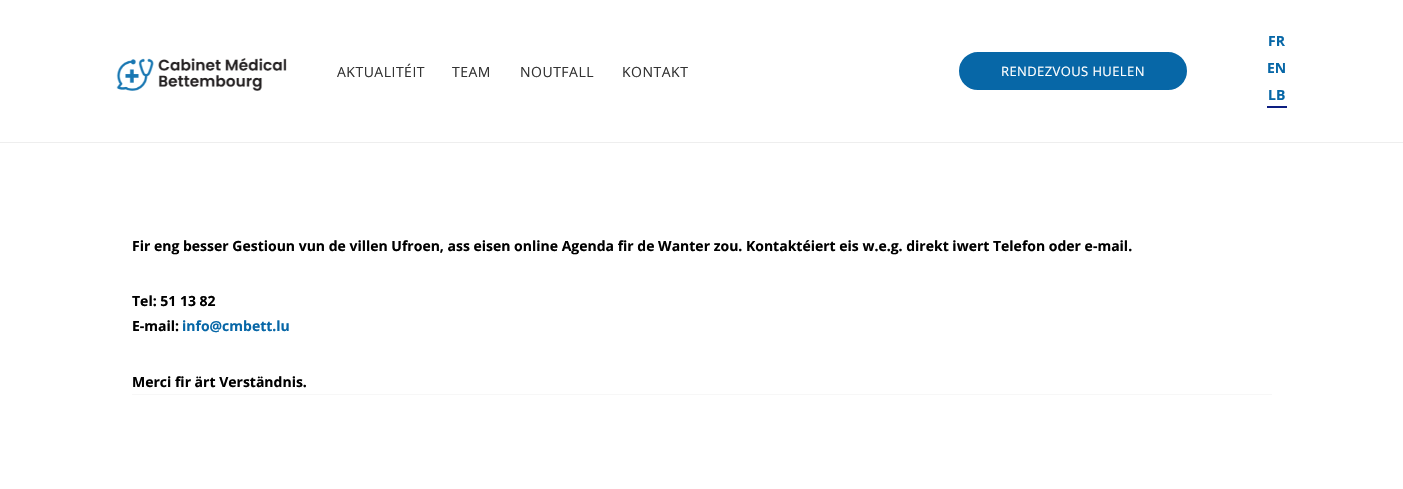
#include "include/core/SkBlurTypes.h"
#include "include/core/SkCanvas.h"
#include "include/core/SkData.h"
#include "include/core/SkFont.h"
#include "include/core/SkFontMgr.h"
#include "include/core/SkImage.h"
#include "include/core/SkMaskFilter.h"
#include "include/core/SkPaint.h"
#include "include/core/SkPathBuilder.h"
#include "include/core/SkTextBlob.h"
#include "include/effects/SkDashPathEffect.h"
#include "include/effects/SkGradientShader.h"
#include "include/utils/SkParsePath.h"

extern sk_sp<SkFontMgr> fontMgr;

void draw(SkCanvas* canvas) {
  SkPaint p;
  p.setAntiAlias(true);
  auto spacedText = [&](const char* s, float x, float y, const SkFont& font, const SkPaint& ink, float letter, float word) {
    std::vector<SkGlyphID> glyphs(font.countText(s, strlen(s), SkTextEncoding::kUTF8));
    std::vector<float> xs(glyphs.size());
    font.textToGlyphs(s, strlen(s), SkTextEncoding::kUTF8, glyphs);
    font.getXPos(glyphs, xs, x);
    float extra = 0;
    for (size_t i = 0; i < glyphs.size(); i++) {
      xs[i] += extra;
      extra += letter + word * (glyphs[i] == font.unicharToGlyph(' '));
    }
    canvas->drawTextBlob(SkTextBlob::MakeFromPosHGlyphs(glyphs, xs, y, font), 0, 0, ink);
  };
  canvas->clear(SK_ColorWHITE);
  p.setColor(SkColorSetRGB(238, 238, 238));
  canvas->drawRect(SkRect::MakeLTRB(0, 142, 1403, 143), p);
  canvas->drawImageRect(SkImages::DeferredFromEncodedData(SkData::MakeFromFileName("images/1.png")), SkRect::MakeLTRB(116, 58, 287, 91), SkSamplingOptions());
  p.setColor(SkColorSetRGB(7, 103, 167));
  canvas->drawRoundRect(SkRect::MakeLTRB(960, 53, 1186, 89), 18, 18, p);
  p.setStyle(SkPaint::kStroke_Style);
  p.setStrokeWidth(2);
  canvas->drawRoundRect(SkRect::MakeLTRB(960, 53, 1186, 89), 18, 18, p);
  p.setStyle(SkPaint::kFill_Style);
  p.setColor(SkColorSetRGB(13, 30, 129));
  canvas->drawRect(SkRect::MakeLTRB(1267, 106, 1287, 108), p);
  p.setColor(SkColorSetRGB(247, 247, 247));
  canvas->drawRect(SkRect::MakeLTRB(132, 394, 1272, 395), p);
  SkFont font1(fontMgr->matchFamilyStyle("Open Sans", SkFontStyle::Normal()), 14);
  font1.setSubpixel(true);
  p.setColor(SkColorSetRGB(51, 51, 51));
  spacedText("AKTUALITÉIT", 337, 77, font1, p, 0.5f, 0);
  spacedText("TEAM", 452, 77, font1, p, 0.5f, 0);
  spacedText("NOUTFALL", 520, 77, font1, p, 0.5f, 0);
  spacedText("KONTAKT", 622, 77, font1, p, 0.5f, 0);
  SkFont font2(fontMgr->matchFamilyStyle("Open Sans", SkFontStyle::Normal()), 13);
  font2.setSubpixel(true);
  p.setColor(SK_ColorWHITE);
  spacedText("RENDEZVOUS HUELEN", 1001, 76, font2, p, 0.4f, 0);
  SkFont font3(fontMgr->matchFamilyStyle("Open Sans", SkFontStyle::Bold()), 14);
  font3.setSubpixel(true);
  p.setColor(SkColorSetRGB(7, 103, 167));
  canvas->drawString("FR", 1268, 46, font3, p);
  canvas->drawString("EN", 1267, 73, font3, p);
  canvas->drawString("LB", 1268, 100, font3, p);
  p.setColor(SK_ColorBLACK);
  canvas->drawString("Fir eng besser Gestioun vun de villen Ufroen, ass eisen online Agenda fir de Wanter zou. Kontaktéiert eis w.e.g. direkt iwert Telefon oder e-mail.", 132, 251, font3, p);
  canvas->drawString("Tel: 51 13 82", 132, 306, font3, p);
  canvas->drawString("E-mail:", 132, 331, font3, p);
  p.setColor(SkColorSetRGB(7, 103, 167));
  canvas->drawString("info@cmbett.lu", 182, 331, font3, p);
  p.setColor(SK_ColorBLACK);
  canvas->drawString("Merci fir ärt Verständnis.", 132, 387, font3, p);
}
